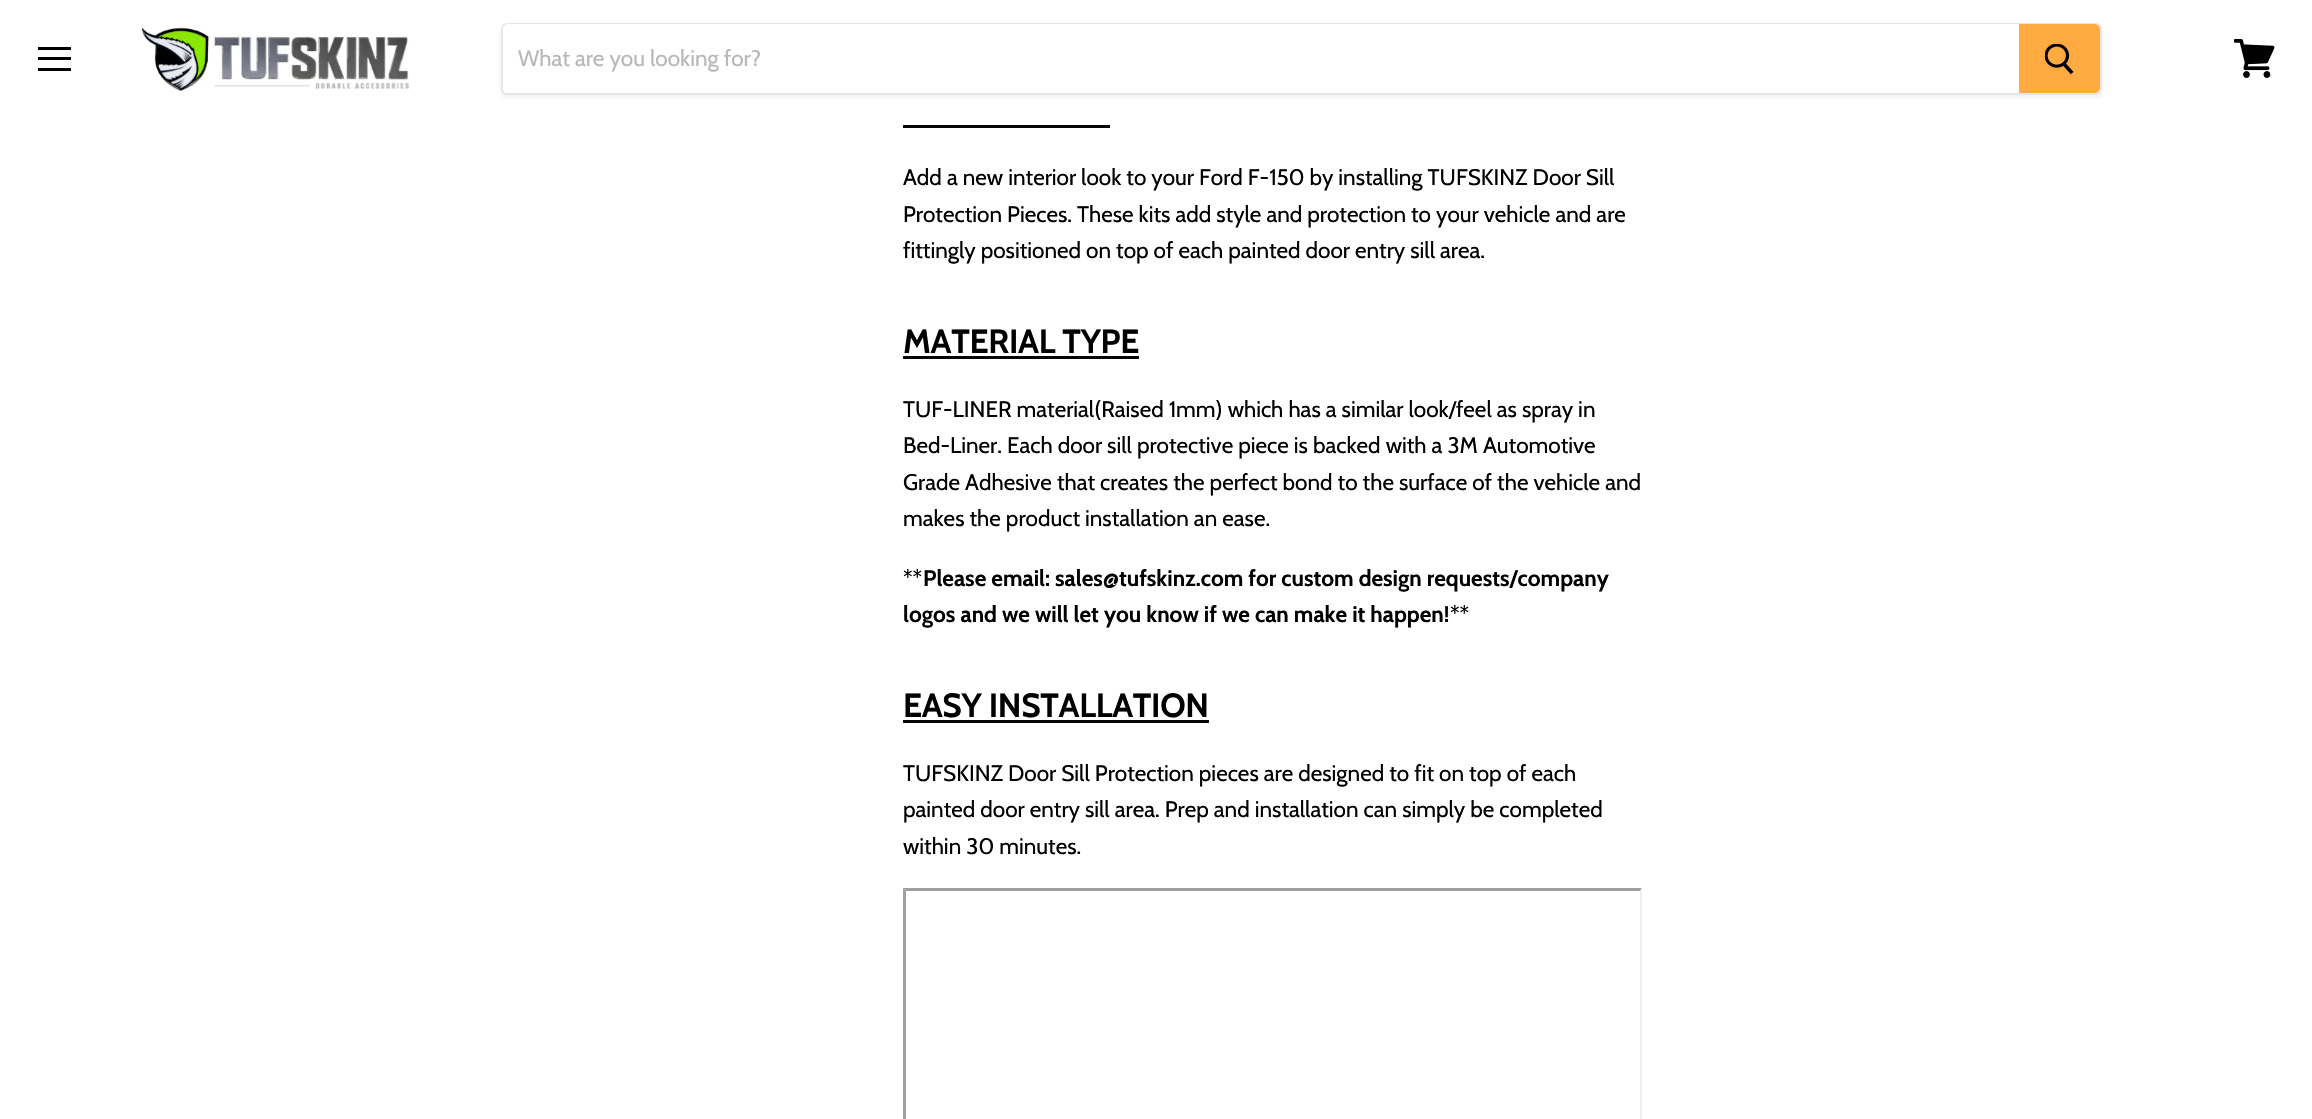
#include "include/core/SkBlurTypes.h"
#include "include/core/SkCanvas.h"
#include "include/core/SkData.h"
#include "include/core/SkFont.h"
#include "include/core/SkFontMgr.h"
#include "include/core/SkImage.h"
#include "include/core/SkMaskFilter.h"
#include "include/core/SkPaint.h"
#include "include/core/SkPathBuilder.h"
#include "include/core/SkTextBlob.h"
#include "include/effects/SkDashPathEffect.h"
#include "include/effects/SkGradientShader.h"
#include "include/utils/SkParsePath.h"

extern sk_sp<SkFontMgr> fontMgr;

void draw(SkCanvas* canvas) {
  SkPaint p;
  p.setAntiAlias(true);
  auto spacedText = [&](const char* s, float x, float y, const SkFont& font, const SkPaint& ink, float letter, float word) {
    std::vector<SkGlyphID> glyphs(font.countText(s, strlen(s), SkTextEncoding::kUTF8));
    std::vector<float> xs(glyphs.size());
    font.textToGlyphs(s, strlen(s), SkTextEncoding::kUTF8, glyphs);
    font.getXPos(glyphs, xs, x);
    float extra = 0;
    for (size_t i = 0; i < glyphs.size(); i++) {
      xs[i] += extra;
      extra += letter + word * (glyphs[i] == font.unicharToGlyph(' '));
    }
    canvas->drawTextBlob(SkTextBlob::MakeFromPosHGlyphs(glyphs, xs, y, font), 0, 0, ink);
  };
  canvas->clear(SK_ColorWHITE);
  p.setColor(SK_ColorBLACK);
  canvas->drawRect(SkRect::MakeLTRB(38, 47, 71, 50), p);
  canvas->drawRect(SkRect::MakeLTRB(38, 57, 71, 60), p);
  canvas->drawRect(SkRect::MakeLTRB(38, 68, 71, 71), p);
  canvas->drawImageRect(SkImages::DeferredFromEncodedData(SkData::MakeFromFileName("images/1.png")), SkRect::MakeLTRB(141, 27, 409, 92), SkSamplingOptions());
  canvas->save();
  canvas->clipPath(SkPathBuilder(SkPathFillType::kEvenOdd).moveTo(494, 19).lineTo(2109, 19).lineTo(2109, 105).lineTo(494, 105).close().moveTo(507, 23).lineTo(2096, 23).cubicTo(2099.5f, 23, 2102, 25.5f, 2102, 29).lineTo(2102, 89).cubicTo(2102, 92.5f, 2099.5f, 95, 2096, 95).lineTo(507, 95).cubicTo(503.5f, 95, 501, 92.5f, 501, 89).lineTo(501, 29).cubicTo(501, 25.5f, 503.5f, 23, 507, 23).close().detach(), true);
  p.setColor(SkColorSetARGB(28, 128, 128, 128));
  p.setMaskFilter(SkMaskFilter::MakeBlur(kNormal_SkBlurStyle, 2));
  canvas->drawRoundRect(SkRect::MakeLTRB(501, 26, 2102, 98), 6, 6, p);
  p.setMaskFilter(nullptr);
  canvas->restore();
  p.setStyle(SkPaint::kStroke_Style);
  p.setStrokeWidth(2);
  p.setColor(SkColorSetARGB(51, 128, 128, 128));
  canvas->drawRoundRect(SkRect::MakeLTRB(502, 24, 2101, 94), 5, 5, p);
  p.setStyle(SkPaint::kFill_Style);
  p.setColor(SK_ColorWHITE);
  canvas->drawPath(SkPathBuilder().moveTo(508, 24).lineTo(2019, 24).lineTo(2019, 93).lineTo(508, 93).cubicTo(505, 93, 503, 91, 503, 88).lineTo(503, 29).cubicTo(503, 26, 505, 24, 508, 24).close().detach(), p);
  p.setColor(SkColorSetRGB(255, 171, 65));
  canvas->drawPath(SkPathBuilder().moveTo(2020, 25).lineTo(2095, 25).cubicTo(2097, 25, 2099, 27, 2099, 29).lineTo(2099, 88).cubicTo(2099, 90, 2097, 92, 2095, 92).lineTo(2020, 92).close().detach(), p);
  p.setStyle(SkPaint::kStroke_Style);
  canvas->drawPath(SkPathBuilder().moveTo(2020, 25).lineTo(2095, 25).cubicTo(2097, 25, 2099, 27, 2099, 29).lineTo(2099, 88).cubicTo(2099, 90, 2097, 92, 2095, 92).lineTo(2020, 92).close().detach(), p);
  canvas->drawImageRect(SkImages::DeferredFromEncodedData(SkData::MakeFromFileName("images/2.png")), SkRect::MakeLTRB(2045, 44, 2074, 75), SkSamplingOptions());
  canvas->drawImageRect(SkImages::DeferredFromEncodedData(SkData::MakeFromFileName("images/3.png")), SkRect::MakeLTRB(2234, 39, 2275, 78), SkSamplingOptions());
  p.setStyle(SkPaint::kFill_Style);
  p.setColor(SkColorSetRGB(5, 5, 5));
  canvas->drawRect(SkRect::MakeLTRB(903, 125, 1110, 128), p);
  canvas->drawRect(SkRect::MakeLTRB(903, 356, 1139, 359), p);
  canvas->drawRect(SkRect::MakeLTRB(903, 720, 1209, 723), p);
  p.setColor(SkColorSetRGB(159, 159, 159));
  canvas->drawPath(SkPathBuilder().moveTo(903, 888).lineTo(1642, 888).lineTo(1640, 891).lineTo(906, 891).close().detach(), p);
  p.setColor(SkColorSetRGB(238, 238, 238));
  canvas->drawPath(SkPathBuilder().moveTo(1642, 888).lineTo(1642, 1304).lineTo(1640, 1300).lineTo(1640, 891).close().detach(), p);
  p.setColor(SkColorSetRGB(159, 159, 159));
  canvas->drawPath(SkPathBuilder().moveTo(903, 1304).lineTo(903, 888).lineTo(906, 891).lineTo(906, 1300).close().detach(), p);
  SkFont font1(fontMgr->matchFamilyStyle("Cabin", SkFontStyle::Normal()), 22.5f);
  font1.setSubpixel(true);
  p.setColor(SkColorSetRGB(184, 184, 184));
  canvas->drawString("What are you looking for?", 518, 66, font1, p);
  p.setColor(SK_ColorBLACK);
  canvas->drawString("Add a new interior look to your Ford F-150 by installing TUFSKINZ Door Sill", 903, 185, font1, p);
  canvas->drawString("Protection Pieces. These kits add style and protection to your vehicle and are", 903, 222, font1, p);
  canvas->drawString("fittingly positioned on top of each painted door entry sill area.", 903, 258, font1, p);
  SkFont font2(fontMgr->matchFamilyStyle("Cabin", SkFontStyle::Bold()), 33.5f);
  font2.setSubpixel(true);
  spacedText("MATERIAL TYPE", 903, 353, font2, p, -0.3f, 0);
  canvas->drawString("TUF-LINER material(Raised 1mm) which has a similar look/feel as spray in", 903, 417, font1, p);
  canvas->drawString("Bed-Liner. Each door sill protective piece is backed with a 3M Automotive", 903, 453, font1, p);
  canvas->drawString("Grade Adhesive that creates the perfect bond to the surface of the vehicle and", 903, 490, font1, p);
  canvas->drawString("makes the product installation an ease.", 903, 526, font1, p);
  canvas->drawString("**", 903, 586, font1, p);
  SkFont font3(fontMgr->matchFamilyStyle("Cabin", SkFontStyle::Bold()), 22.5f);
  font3.setSubpixel(true);
  canvas->drawString("Please email: sales@tufskinz.com for custom design requests/company", 923, 586, font3, p);
  canvas->drawString("logos and we will let you know if we can make it happen!", 903, 622, font3, p);
  canvas->drawString("**", 1450, 622, font1, p);
  spacedText("EASY INSTALLATION", 903, 717, font2, p, -0.3f, 0);
  canvas->drawString("TUFSKINZ Door Sill Protection pieces are designed to fit on top of each", 903, 781, font1, p);
  canvas->drawString("painted door entry sill area. Prep and installation can simply be completed", 903, 817, font1, p);
  canvas->drawString("within 30 minutes.", 903, 854, font1, p);
}
